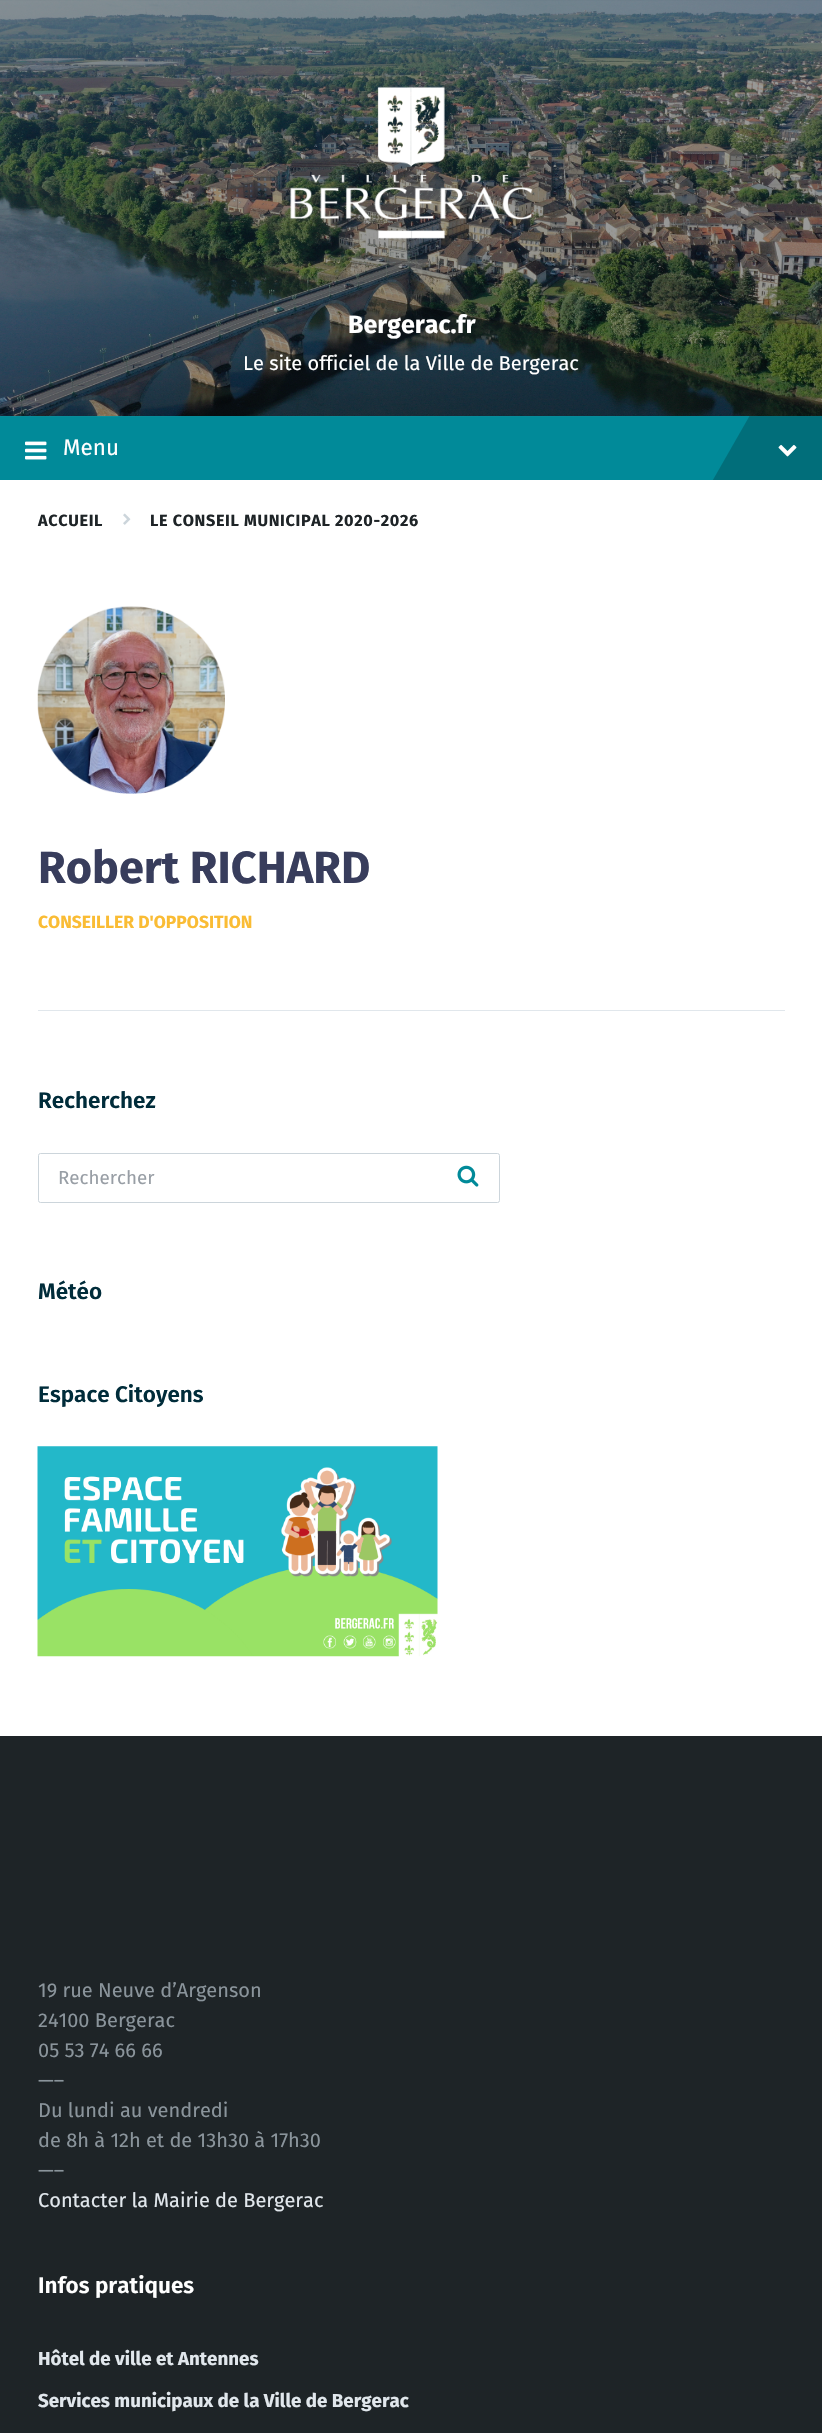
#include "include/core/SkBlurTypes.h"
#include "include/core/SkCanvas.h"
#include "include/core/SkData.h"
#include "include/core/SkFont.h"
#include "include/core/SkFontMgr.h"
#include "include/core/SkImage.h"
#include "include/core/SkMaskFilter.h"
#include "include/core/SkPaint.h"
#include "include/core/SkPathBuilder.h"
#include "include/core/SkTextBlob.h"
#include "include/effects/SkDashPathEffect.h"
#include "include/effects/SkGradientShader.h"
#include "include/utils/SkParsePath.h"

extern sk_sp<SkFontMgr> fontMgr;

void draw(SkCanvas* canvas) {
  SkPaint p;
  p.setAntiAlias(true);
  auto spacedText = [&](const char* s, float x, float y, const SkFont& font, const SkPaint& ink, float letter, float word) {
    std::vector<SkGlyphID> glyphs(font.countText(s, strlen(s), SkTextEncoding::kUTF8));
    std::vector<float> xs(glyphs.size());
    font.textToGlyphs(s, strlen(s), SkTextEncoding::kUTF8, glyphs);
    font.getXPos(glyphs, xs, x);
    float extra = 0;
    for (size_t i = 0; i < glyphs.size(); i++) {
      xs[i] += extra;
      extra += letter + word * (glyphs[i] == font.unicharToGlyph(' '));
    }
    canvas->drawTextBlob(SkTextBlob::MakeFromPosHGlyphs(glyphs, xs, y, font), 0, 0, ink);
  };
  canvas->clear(SK_ColorWHITE);
  p.setColor(SkColorSetRGB(1, 138, 153));
  canvas->drawRect(SkRect::MakeLTRB(0, 416, 822, 480), p);
  canvas->drawImageRect(SkImages::DeferredFromEncodedData(SkData::MakeFromFileName("images/1.png")), SkRect::MakeLTRB(0, 0, 822, 417), SkSamplingOptions());
  canvas->drawImageRect(SkImages::DeferredFromEncodedData(SkData::MakeFromFileName("images/2.png")), SkRect::MakeLTRB(290, 86, 533, 239), SkSamplingOptions());
  canvas->drawImageRect(SkImages::DeferredFromEncodedData(SkData::MakeFromFileName("images/3.png")), SkRect::MakeLTRB(25, 441, 47, 460), SkSamplingOptions());
  canvas->save();
  canvas->clipRect(SkRect::MakeLTRB(0, 416, 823, 480));
  p.setColor(SkColorSetARGB(51, 0, 0, 0));
  canvas->drawPath(SkPathBuilder().moveTo(773, 375).lineTo(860, 425).lineTo(797, 535).lineTo(710, 485).close().detach(), p);
  canvas->restore();
  canvas->drawImageRect(SkImages::DeferredFromEncodedData(SkData::MakeFromFileName("images/4.png")), SkRect::MakeLTRB(778, 444, 797, 457), SkSamplingOptions());
  canvas->drawImageRect(SkImages::DeferredFromEncodedData(SkData::MakeFromFileName("images/5.png")), SkRect::MakeLTRB(123, 513, 131, 525), SkSamplingOptions());
  canvas->drawImageRect(SkImages::DeferredFromEncodedData(SkData::MakeFromFileName("images/6.png")), SkRect::MakeLTRB(37, 606, 225, 794), SkSamplingOptions());
  p.setColor(SkColorSetRGB(225, 231, 236));
  canvas->drawRect(SkRect::MakeLTRB(38, 1010, 785, 1011), p);
  p.setStyle(SkPaint::kStroke_Style);
  p.setStrokeWidth(1);
  p.setColor(SkColorSetRGB(204, 213, 219));
  canvas->drawRoundRect(SkRect::MakeLTRB(38.5f, 1153.5f, 499.5f, 1202.5f), 2, 2, p);
  canvas->drawImageRect(SkImages::DeferredFromEncodedData(SkData::MakeFromFileName("images/7.png")), SkRect::MakeLTRB(457, 1165, 479, 1187), SkSamplingOptions());
  canvas->drawImageRect(SkImages::DeferredFromEncodedData(SkData::MakeFromFileName("images/8.png")), SkRect::MakeLTRB(37, 1446, 438, 1657), SkSamplingOptions());
  p.setStyle(SkPaint::kFill_Style);
  p.setColor(SkColorSetRGB(30, 36, 39));
  canvas->drawRect(SkRect::MakeLTRB(0, 1736, 822, 2433), p);
  SkFont font1(fontMgr->matchFamilyStyle("Fira Sans", SkFontStyle::Bold()), 25);
  font1.setSubpixel(true);
  p.setColor(SK_ColorWHITE);
  canvas->drawString("Bergerac.fr", 348, 333, font1, p);
  SkFont font2(fontMgr->matchFamilyStyle("Fira Sans", SkFontStyle::Normal()), 20);
  font2.setSubpixel(true);
  canvas->drawString("Le site officiel de la Ville de Bergerac", 243, 370, font2, p);
  SkFont font3(fontMgr->matchFamilyStyle("Fira Sans", SkFontStyle::Normal()), 22.5f);
  font3.setSubpixel(true);
  canvas->drawString("Menu", 63, 455, font3, p);
  SkFont font4(fontMgr->matchFamilyStyle("Fira Sans", SkFontStyle::Bold()), 16.25f);
  font4.setSubpixel(true);
  p.setColor(SkColorSetRGB(30, 36, 39));
  spacedText("ACCUEIL", 38, 526, font4, p, 0.65f, 0);
  spacedText("LE CONSEIL MUNICIPAL 2020-2026", 150, 526, font4, p, 0.65f, 0);
  SkFont font5(fontMgr->matchFamilyStyle("Fira Sans", SkFontStyle::Bold()), 45);
  font5.setSubpixel(true);
  p.setColor(SkColorSetRGB(56, 61, 92));
  canvas->drawString("Robert RICHARD", 38, 883, font5, p);
  SkFont font6(fontMgr->matchFamilyStyle("Fira Sans", SkFontStyle::Bold()), 17.5f);
  font6.setSubpixel(true);
  p.setColor(SkColorSetRGB(250, 188, 52));
  canvas->drawString("CONSEILLER D'OPPOSITION", 38, 928, font6, p);
  SkFont font7(fontMgr->matchFamilyStyle("Fira Sans", SkFontStyle(600, SkFontStyle::kNormal_Width, SkFontStyle::kUpright_Slant)), 22.5f);
  font7.setSubpixel(true);
  p.setColor(SkColorSetRGB(0, 44, 58));
  canvas->drawString("Recherchez", 38, 1108, font7, p);
  SkFont font8(fontMgr->matchFamilyStyle("Fira Sans", SkFontStyle::Normal()), 18.75f);
  font8.setSubpixel(true);
  p.setColor(SkColorSetRGB(152, 158, 165));
  canvas->drawString("Rechercher", 58, 1184, font8, p);
  p.setColor(SkColorSetRGB(0, 44, 58));
  canvas->drawString("Météo", 38, 1299, font7, p);
  canvas->drawString("Espace Citoyens", 38, 1402, font7, p);
  p.setColor(SkColorSetRGB(138, 148, 155));
  canvas->drawString("19 rue Neuve d’Argenson", 38, 1997, font2, p);
  canvas->drawString("24100 Bergerac", 38, 2027, font2, p);
  canvas->drawString("05 53 74 66 66", 38, 2057, font2, p);
  canvas->drawString("—–", 38, 2087, font2, p);
  canvas->drawString("Du lundi au vendredi", 38, 2117, font2, p);
  canvas->drawString("de 8h à 12h et de 13h30 à 17h30", 38, 2147, font2, p);
  canvas->drawString("—–", 38, 2177, font2, p);
  p.setColor(SkColorSetRGB(225, 231, 236));
  canvas->drawString("Contacter la Mairie de Bergerac", 38, 2207, font2, p);
  p.setColor(SK_ColorWHITE);
  canvas->drawString("Infos pratiques", 38, 2293, font7, p);
  SkFont font9(fontMgr->matchFamilyStyle("Fira Sans", SkFontStyle::Bold()), 18.75f);
  font9.setSubpixel(true);
  p.setColor(SkColorSetRGB(225, 231, 236));
  canvas->drawString("Hôtel de ville et Antennes", 38, 2365, font9, p);
  canvas->drawString("Services municipaux de la Ville de Bergerac", 38, 2407, font9, p);
}
